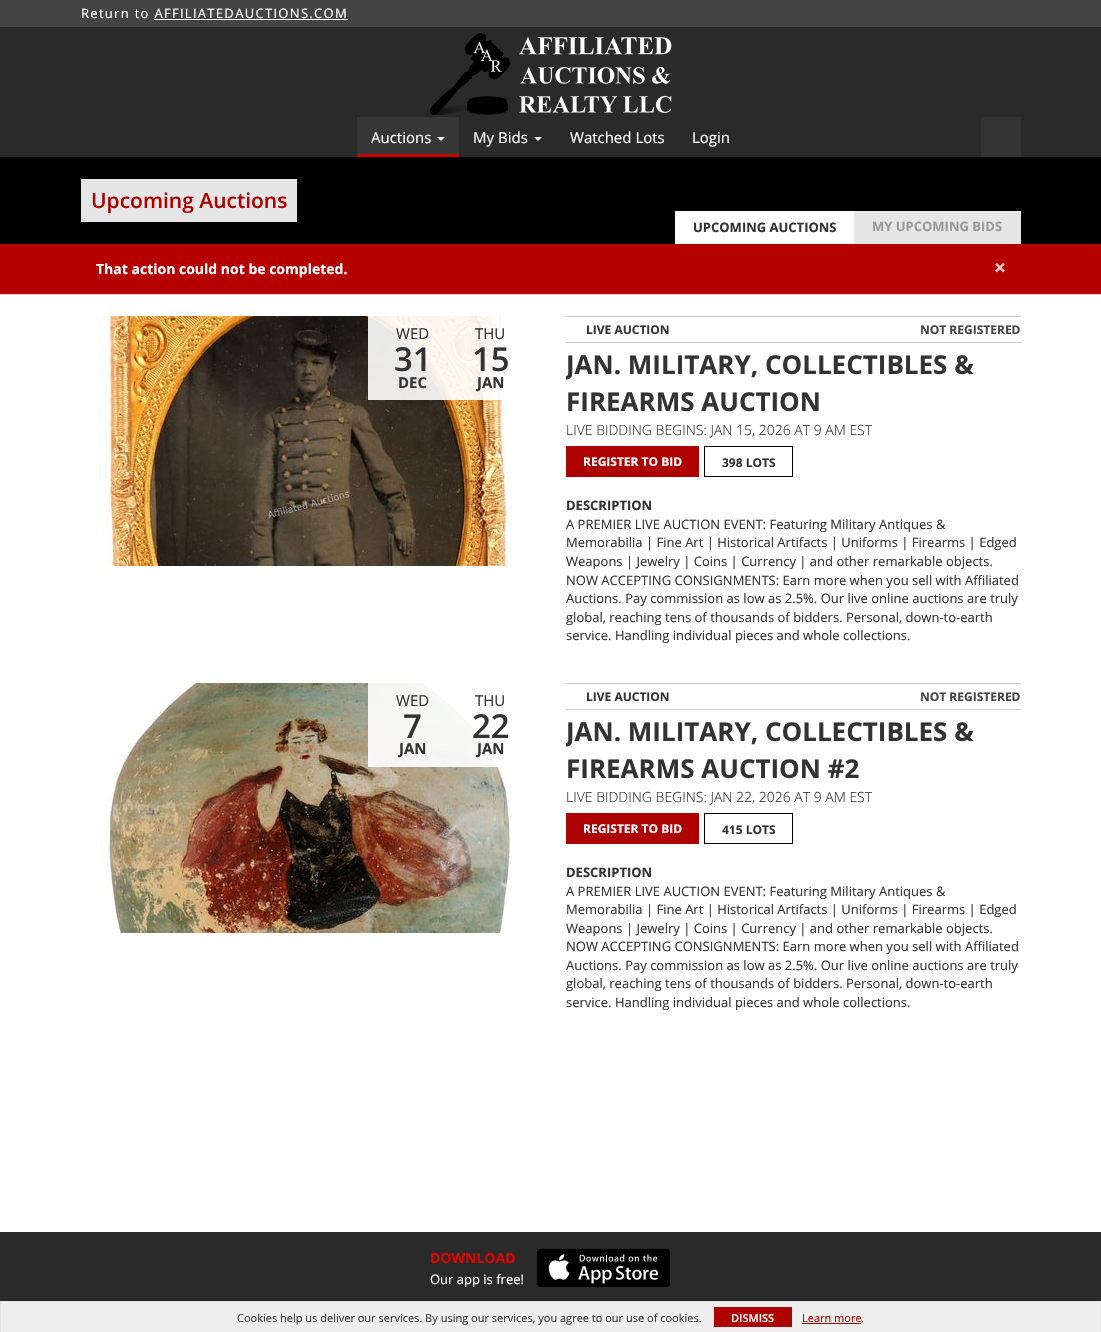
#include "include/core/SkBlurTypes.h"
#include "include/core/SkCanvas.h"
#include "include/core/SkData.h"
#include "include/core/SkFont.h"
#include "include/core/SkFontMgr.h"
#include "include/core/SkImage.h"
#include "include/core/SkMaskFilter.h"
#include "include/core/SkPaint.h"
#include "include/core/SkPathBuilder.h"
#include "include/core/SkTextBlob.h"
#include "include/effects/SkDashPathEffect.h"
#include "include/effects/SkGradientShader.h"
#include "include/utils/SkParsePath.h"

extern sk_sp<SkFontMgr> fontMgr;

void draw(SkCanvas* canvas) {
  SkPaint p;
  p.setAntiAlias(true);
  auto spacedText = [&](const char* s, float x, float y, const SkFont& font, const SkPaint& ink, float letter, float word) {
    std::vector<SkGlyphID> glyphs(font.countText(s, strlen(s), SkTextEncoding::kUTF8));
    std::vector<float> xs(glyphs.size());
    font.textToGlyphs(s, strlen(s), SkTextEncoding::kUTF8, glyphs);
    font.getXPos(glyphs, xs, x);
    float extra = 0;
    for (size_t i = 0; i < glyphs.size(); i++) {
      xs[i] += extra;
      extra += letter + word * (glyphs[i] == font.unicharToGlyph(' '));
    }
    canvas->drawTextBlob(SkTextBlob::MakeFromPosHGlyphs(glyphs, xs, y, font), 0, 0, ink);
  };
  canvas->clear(SK_ColorWHITE);
  p.setColor(SkColorSetRGB(68, 68, 68));
  canvas->drawRect(SkRect::MakeLTRB(0, 0, 1101, 27), p);
  p.setColor(SK_ColorWHITE);
  canvas->drawRect(SkRect::MakeLTRB(154, 19, 348, 20), p);
  p.setColor(SkColorSetRGB(42, 42, 42));
  canvas->drawRect(SkRect::MakeLTRB(0, 27, 1101, 157), p);
  canvas->drawImageRect(SkImages::DeferredFromEncodedData(SkData::MakeFromFileName("images/1.png")), SkRect::MakeLTRB(430, 33, 672, 115), SkSamplingOptions());
  p.setColor(SkColorSetRGB(55, 55, 55));
  canvas->drawRect(SkRect::MakeLTRB(357, 117, 459, 154), p);
  p.setColor(SkColorSetRGB(199, 2, 0));
  canvas->drawRect(SkRect::MakeLTRB(357, 154, 459, 157), p);
  p.setColor(SK_ColorWHITE);
  canvas->drawPath(SkPathBuilder().moveTo(437, 137).lineTo(445, 137).lineTo(441, 141).close().detach(), p);
  canvas->drawPath(SkPathBuilder().moveTo(534, 137).lineTo(542, 137).lineTo(538, 141).close().detach(), p);
  p.setColor(SkColorSetRGB(51, 51, 51));
  canvas->drawRect(SkRect::MakeLTRB(981, 117, 1021, 157), p);
  p.setColor(SK_ColorBLACK);
  canvas->drawRect(SkRect::MakeLTRB(0, 157, 1101, 244), p);
  p.setColor(SkColorSetRGB(230, 230, 230));
  canvas->drawRect(SkRect::MakeLTRB(81, 179, 297, 222), p);
  p.setColor(SK_ColorWHITE);
  canvas->drawRect(SkRect::MakeLTRB(675, 211, 854, 244), p);
  p.setColor(SkColorSetRGB(230, 230, 230));
  canvas->drawRect(SkRect::MakeLTRB(854, 211, 1021, 244), p);
  p.setColor(SkColorSetRGB(181, 0, 0));
  canvas->drawRect(SkRect::MakeLTRB(0, 244, 1101, 294), p);
  p.setColor(SkColorSetRGB(235, 204, 209));
  canvas->drawRect(SkRect::MakeLTRB(0, 294, 1101, 295), p);
  canvas->drawImageRect(SkImages::DeferredFromEncodedData(SkData::MakeFromFileName("images/2.png")), SkRect::MakeLTRB(97, 316, 513, 566), SkSamplingOptions());
  p.setColor(SkColorSetARGB(230, 255, 255, 255));
  canvas->drawRect(SkRect::MakeLTRB(368, 316, 513, 400), p);
  p.setColor(SkColorSetRGB(204, 204, 204));
  canvas->drawRect(SkRect::MakeLTRB(566, 316, 1021, 317), p);
  canvas->drawRect(SkRect::MakeLTRB(566, 342, 1021, 343), p);
  p.setColor(SkColorSetRGB(173, 2, 0));
  canvas->drawRect(SkRect::MakeLTRB(566, 446, 699, 477), p);
  p.setStyle(SkPaint::kStroke_Style);
  p.setStrokeWidth(1);
  p.setColor(SK_ColorBLACK);
  canvas->drawRect(SkRect::MakeLTRB(704.5f, 446.5f, 792.5f, 476.5f), p);
  canvas->drawImageRect(SkImages::DeferredFromEncodedData(SkData::MakeFromFileName("images/3.png")), SkRect::MakeLTRB(101, 683, 513, 933), SkSamplingOptions());
  p.setStyle(SkPaint::kFill_Style);
  p.setColor(SkColorSetARGB(230, 255, 255, 255));
  canvas->drawRect(SkRect::MakeLTRB(368, 683, 507, 767), p);
  p.setColor(SkColorSetRGB(204, 204, 204));
  canvas->drawRect(SkRect::MakeLTRB(566, 683, 1021, 684), p);
  canvas->drawRect(SkRect::MakeLTRB(566, 709, 1021, 710), p);
  p.setColor(SkColorSetRGB(173, 2, 0));
  canvas->drawRect(SkRect::MakeLTRB(566, 813, 699, 844), p);
  p.setStyle(SkPaint::kStroke_Style);
  p.setColor(SK_ColorBLACK);
  canvas->drawRect(SkRect::MakeLTRB(704.5f, 813.5f, 792.5f, 843.5f), p);
  p.setStyle(SkPaint::kFill_Style);
  p.setColor(SkColorSetRGB(42, 42, 42));
  canvas->drawRect(SkRect::MakeLTRB(0, 1232, 1101, 1301), p);
  canvas->drawImageRect(SkImages::DeferredFromEncodedData(SkData::MakeFromFileName("images/4.png")), SkRect::MakeLTRB(536, 1248, 670, 1287), SkSamplingOptions());
  p.setColor(SkColorSetRGB(238, 238, 238));
  canvas->drawRect(SkRect::MakeLTRB(1, 1302, 1100, 1332), p);
  p.setColor(SkColorSetRGB(228, 228, 228));
  canvas->drawRect(SkRect::MakeLTRB(0, 1301, 1101, 1302), p);
  canvas->drawRect(SkRect::MakeLTRB(1100, 1301, 1101, 1332), p);
  canvas->drawRect(SkRect::MakeLTRB(0, 1301, 1, 1332), p);
  p.setColor(SkColorSetRGB(173, 2, 0));
  canvas->drawRect(SkRect::MakeLTRB(714, 1307, 792, 1327), p);
  canvas->drawRect(SkRect::MakeLTRB(802, 1323, 861, 1324), p);
  SkFont font1(fontMgr->matchFamilyStyle("Open Sans", SkFontStyle::Normal()), 13);
  font1.setSubpixel(true);
  p.setColor(SK_ColorWHITE);
  spacedText("Return to AFFILIATEDAUCTIONS.COM", 81, 18, font1, p, 1.3f, 0);
  SkFont font2(fontMgr->matchFamilyStyle("Open Sans", SkFontStyle::Normal()), 15);
  font2.setSubpixel(true);
  canvas->drawString("Auctions", 371, 143, font2, p);
  canvas->drawString("My Bids", 473, 143, font2, p);
  canvas->drawString("Watched Lots", 570, 143, font2, p);
  canvas->drawString("Login", 692, 143, font2, p);
  SkFont font3(fontMgr->matchFamilyStyle("Open Sans", SkFontStyle(600, SkFontStyle::kNormal_Width, SkFontStyle::kUpright_Slant)), 21);
  font3.setSubpixel(true);
  p.setColor(SkColorSetRGB(173, 2, 0));
  canvas->drawString("Upcoming Auctions", 91, 208, font3, p);
  SkFont font4(fontMgr->matchFamilyStyle("Open Sans", SkFontStyle::Bold()), 13);
  font4.setSubpixel(true);
  p.setColor(SkColorSetRGB(51, 51, 51));
  canvas->drawString("UPCOMING AUCTIONS", 693, 232, font4, p);
  p.setColor(SkColorSetRGB(153, 153, 153));
  canvas->drawString("MY UPCOMING BIDS", 872, 231, font4, p);
  SkFont font5(fontMgr->matchFamilyStyle("Open Sans", SkFontStyle::Bold()), 14);
  font5.setSubpixel(true);
  p.setColor(SK_ColorWHITE);
  canvas->drawString("That action could not be completed.", 96, 274, font5, p);
  SkFont font6(fontMgr->matchFamilyStyle("Open Sans", SkFontStyle::Bold()), 21);
  font6.setSubpixel(true);
  p.setColor(SkColorSetRGB(240, 204, 204));
  canvas->drawString("×", 994, 275, font6, p);
  p.setColor(SkColorSetRGB(51, 51, 51));
  canvas->drawString("WED", 396, 339, font2, p);
  SkFont font7(fontMgr->matchFamilyStyle("Open Sans", SkFontStyle(600, SkFontStyle::kNormal_Width, SkFontStyle::kUpright_Slant)), 33);
  font7.setSubpixel(true);
  canvas->drawString("31", 394, 371, font7, p);
  SkFont font8(fontMgr->matchFamilyStyle("Open Sans", SkFontStyle::Bold()), 15);
  font8.setSubpixel(true);
  canvas->drawString("DEC", 398, 388, font8, p);
  canvas->drawString("THU", 475, 339, font2, p);
  canvas->drawString("15", 472, 371, font7, p);
  canvas->drawString("JAN", 477, 388, font8, p);
  SkFont font9(fontMgr->matchFamilyStyle("Open Sans", SkFontStyle::Bold()), 12);
  font9.setSubpixel(true);
  canvas->drawString("LIVE AUCTION", 586, 334, font9, p);
  p.setColor(SkColorSetRGB(69, 69, 69));
  canvas->drawString("NOT REGISTERED", 920, 334, font9, p);
  canvas->save();
  canvas->clipRect(SkRect::MakeLTRB(566, 316, 1021, 665));
  SkFont font10(fontMgr->matchFamilyStyle("Open Sans", SkFontStyle::Bold()), 26);
  font10.setSubpixel(true);
  p.setColor(SkColorSetRGB(51, 51, 51));
  canvas->drawString("JAN. MILITARY, COLLECTIBLES &", 566, 374, font10, p);
  canvas->restore();
  canvas->drawString("FIREARMS AUCTION", 566, 411, font10, p);
  SkFont font11(fontMgr->matchFamilyStyle("Open Sans", SkFontStyle(300, SkFontStyle::kNormal_Width, SkFontStyle::kUpright_Slant)), 14);
  font11.setSubpixel(true);
  canvas->drawString("LIVE BIDDING BEGINS: JAN 15, 2026 AT 9 AM EST", 566, 435, font11, p);
  p.setColor(SK_ColorWHITE);
  canvas->drawString("REGISTER TO BID", 583, 466, font9, p);
  p.setColor(SkColorSetRGB(51, 51, 51));
  canvas->drawString("398 LOTS", 722, 467, font9, p);
  canvas->drawString("DESCRIPTION", 566, 510, font4, p);
  canvas->drawString("A PREMIER LIVE AUCTION EVENT: Featuring Military Antiques &", 566, 529, font1, p);
  canvas->drawString("Memorabilia | Fine Art | Historical Artifacts | Uniforms | Firearms | Edged", 566, 547, font1, p);
  canvas->drawString("Weapons | Jewelry | Coins | Currency | and other remarkable objects.", 566, 566, font1, p);
  canvas->drawString("NOW ACCEPTING CONSIGNMENTS: Earn more when you sell with Affiliated", 566, 585, font1, p);
  canvas->drawString("Auctions. Pay commission as low as 2.5%. Our live online auctions are truly", 566, 603, font1, p);
  canvas->drawString("global, reaching tens of thousands of bidders. Personal, down-to-earth", 566, 622, font1, p);
  canvas->drawString("service. Handling individual pieces and whole collections.", 566, 640, font1, p);
  canvas->drawString("WED", 396, 706, font2, p);
  canvas->drawString("7", 403, 738, font7, p);
  canvas->drawString("JAN", 399, 754, font8, p);
  canvas->drawString("THU", 475, 706, font2, p);
  canvas->drawString("22", 472, 738, font7, p);
  canvas->drawString("JAN", 477, 754, font8, p);
  canvas->drawString("LIVE AUCTION", 586, 701, font9, p);
  p.setColor(SkColorSetRGB(69, 69, 69));
  canvas->drawString("NOT REGISTERED", 920, 701, font9, p);
  canvas->save();
  canvas->clipRect(SkRect::MakeLTRB(566, 683, 1021, 1032));
  p.setColor(SkColorSetRGB(51, 51, 51));
  canvas->drawString("JAN. MILITARY, COLLECTIBLES &", 566, 741, font10, p);
  canvas->restore();
  canvas->drawString("FIREARMS AUCTION #2", 566, 778, font10, p);
  canvas->drawString("LIVE BIDDING BEGINS: JAN 22, 2026 AT 9 AM EST", 566, 802, font11, p);
  p.setColor(SK_ColorWHITE);
  canvas->drawString("REGISTER TO BID", 583, 833, font9, p);
  p.setColor(SkColorSetRGB(51, 51, 51));
  canvas->drawString("415 LOTS", 722, 834, font9, p);
  canvas->drawString("DESCRIPTION", 566, 877, font4, p);
  canvas->drawString("A PREMIER LIVE AUCTION EVENT: Featuring Military Antiques &", 566, 896, font1, p);
  canvas->drawString("Memorabilia | Fine Art | Historical Artifacts | Uniforms | Firearms | Edged", 566, 914, font1, p);
  canvas->drawString("Weapons | Jewelry | Coins | Currency | and other remarkable objects.", 566, 933, font1, p);
  canvas->drawString("NOW ACCEPTING CONSIGNMENTS: Earn more when you sell with Affiliated", 566, 951, font1, p);
  canvas->drawString("Auctions. Pay commission as low as 2.5%. Our live online auctions are truly", 566, 970, font1, p);
  canvas->drawString("global, reaching tens of thousands of bidders. Personal, down-to-earth", 566, 988, font1, p);
  canvas->drawString("service. Handling individual pieces and whole collections.", 566, 1007, font1, p);
  p.setColor(SkColorSetRGB(224, 3, 0));
  canvas->drawString("DOWNLOAD", 430, 1263, font5, p);
  p.setColor(SK_ColorWHITE);
  canvas->drawString("Our app is free!", 430, 1284, font1, p);
  SkFont font12(fontMgr->matchFamilyStyle("Open Sans", SkFontStyle::Normal()), 11);
  font12.setSubpixel(true);
  p.setColor(SkColorSetRGB(51, 51, 51));
  canvas->drawString("Cookies help us deliver our services. By using our services, you agree to our use of cookies.", 237, 1322, font12, p);
  SkFont font13(fontMgr->matchFamilyStyle("Open Sans", SkFontStyle(600, SkFontStyle::kNormal_Width, SkFontStyle::kUpright_Slant)), 11);
  font13.setSubpixel(true);
  p.setColor(SK_ColorWHITE);
  canvas->drawString("DISMISS", 731, 1322, font13, p);
  p.setColor(SkColorSetRGB(173, 2, 0));
  canvas->drawString("Learn more", 802, 1322, font12, p);
  p.setColor(SkColorSetRGB(51, 51, 51));
  canvas->drawString(".", 861, 1322, font12, p);
}
